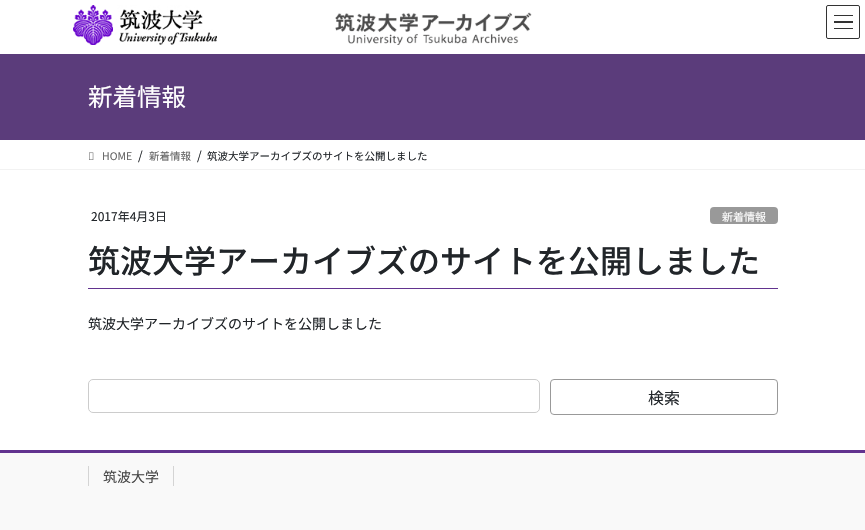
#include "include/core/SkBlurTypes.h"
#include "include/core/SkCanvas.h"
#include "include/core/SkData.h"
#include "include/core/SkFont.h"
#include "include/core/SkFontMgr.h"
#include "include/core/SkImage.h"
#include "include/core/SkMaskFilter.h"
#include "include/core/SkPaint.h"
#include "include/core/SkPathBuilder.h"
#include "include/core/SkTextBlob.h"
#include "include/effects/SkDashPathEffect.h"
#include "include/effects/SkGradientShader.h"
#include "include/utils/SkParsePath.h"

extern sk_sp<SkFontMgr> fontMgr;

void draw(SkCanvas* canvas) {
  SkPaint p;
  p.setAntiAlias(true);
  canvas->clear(SK_ColorWHITE);
  canvas->drawImageRect(SkImages::DeferredFromEncodedData(SkData::MakeFromFileName("images/1.png")), SkRect::MakeLTRB(73, 5, 217, 45), SkSamplingOptions());
  canvas->drawImageRect(SkImages::DeferredFromEncodedData(SkData::MakeFromFileName("images/2.png")), SkRect::MakeLTRB(335, 12, 532, 45), SkSamplingOptions());
  p.setColor(SkColorSetRGB(51, 51, 51));
  canvas->drawRect(SkRect::MakeLTRB(834, 15, 853, 16), p);
  canvas->drawRect(SkRect::MakeLTRB(834, 21, 853, 23), p);
  canvas->drawRect(SkRect::MakeLTRB(834, 28, 853, 29), p);
  p.setStyle(SkPaint::kStroke_Style);
  p.setStrokeWidth(1);
  canvas->drawRoundRect(SkRect::MakeLTRB(826.5f, 5.5f, 859.5f, 38.5f), 1.5f, 1.5f, p);
  p.setStyle(SkPaint::kFill_Style);
  p.setColor(SkColorSetRGB(91, 60, 123));
  canvas->drawRect(SkRect::MakeLTRB(0, 54, 865, 140), p);
  p.setColor(SkColorSetRGB(242, 242, 242));
  canvas->drawRect(SkRect::MakeLTRB(0, 169, 865, 170), p);
  canvas->drawImageRect(SkImages::DeferredFromEncodedData(SkData::MakeFromFileName("images/3.png")), SkRect::MakeLTRB(89, 152, 94, 160), SkSamplingOptions());
  p.setColor(SkColorSetRGB(98, 51, 143));
  canvas->drawRect(SkRect::MakeLTRB(88, 288, 778, 289), p);
  p.setColor(SkColorSetRGB(153, 153, 153));
  canvas->drawRoundRect(SkRect::MakeLTRB(710, 207, 778, 224), 4, 4, p);
  p.setStyle(SkPaint::kStroke_Style);
  p.setColor(SkColorSetRGB(204, 204, 204));
  canvas->drawRoundRect(SkRect::MakeLTRB(88.5f, 379.5f, 539.5f, 412.5f), 4.5f, 4.5f, p);
  p.setColor(SkColorSetRGB(153, 153, 153));
  canvas->drawRoundRect(SkRect::MakeLTRB(550.5f, 379.5f, 777.5f, 414.5f), 3.5f, 3.5f, p);
  p.setStyle(SkPaint::kFill_Style);
  p.setColor(SkColorSetRGB(249, 249, 249));
  canvas->drawRect(SkRect::MakeLTRB(0, 453, 865, 530), p);
  p.setColor(SkColorSetRGB(98, 51, 143));
  canvas->drawRect(SkRect::MakeLTRB(0, 450, 865, 453), p);
  p.setColor(SkColorSetRGB(212, 212, 212));
  canvas->drawRect(SkRect::MakeLTRB(173, 466, 174, 486), p);
  canvas->drawRect(SkRect::MakeLTRB(88, 466, 89, 486), p);
  SkFont font1(fontMgr->matchFamilyStyle("Noto Sans JP", SkFontStyle::Normal()), 24.5f);
  font1.setSubpixel(true);
  p.setColor(SK_ColorWHITE);
  canvas->drawString("新着情報", 88, 106, font1, p);
  SkFont font2(fontMgr->matchFamilyStyle("Noto Sans JP", SkFontStyle::Normal()), 10.5f);
  font2.setSubpixel(true);
  p.setColor(SkColorSetRGB(102, 102, 102));
  canvas->drawString("HOME", 102, 160, font2, p);
  SkFont font3(fontMgr->matchFamilyStyle("Noto Sans JP", SkFontStyle::Normal()), 12);
  font3.setSubpixel(true);
  p.setColor(SkColorSetRGB(33, 37, 41));
  canvas->drawString("/", 138, 160, font3, p);
  p.setColor(SkColorSetRGB(102, 102, 102));
  canvas->drawString("新着情報", 149, 160, font2, p);
  p.setColor(SkColorSetRGB(33, 37, 41));
  canvas->drawString("/", 197, 160, font3, p);
  canvas->drawString("筑波大学アーカイブズのサイトを公開しました", 207, 160, font2, p);
  canvas->drawString("2017年4月3日", 91, 221, font3, p);
  SkFont font4(fontMgr->matchFamilyStyle("Noto Sans JP", SkFontStyle::Normal()), 11);
  font4.setSubpixel(true);
  p.setColor(SK_ColorWHITE);
  canvas->drawString("新着情報", 722, 221, font4, p);
  SkFont font5(fontMgr->matchFamilyStyle("Noto Sans JP", SkFontStyle(500, SkFontStyle::kNormal_Width, SkFontStyle::kUpright_Slant)), 32);
  font5.setSubpixel(true);
  p.setColor(SkColorSetRGB(33, 37, 41));
  canvas->drawString("筑波大学アーカイブズのサイトを公開しました", 88, 273, font5, p);
  SkFont font6(fontMgr->matchFamilyStyle("Noto Sans JP", SkFontStyle::Normal()), 14);
  font6.setSubpixel(true);
  canvas->drawString("筑波大学アーカイブズのサイトを公開しました", 88, 329, font6, p);
  SkFont font7(fontMgr->matchFamilyStyle("Noto Sans JP", SkFontStyle::Normal()), 16);
  font7.setSubpixel(true);
  canvas->drawString("検索", 648, 404, font7, p);
  p.setColor(SkColorSetRGB(70, 70, 70));
  canvas->drawString("筑波大学", 103, 482, font6, p);
}
